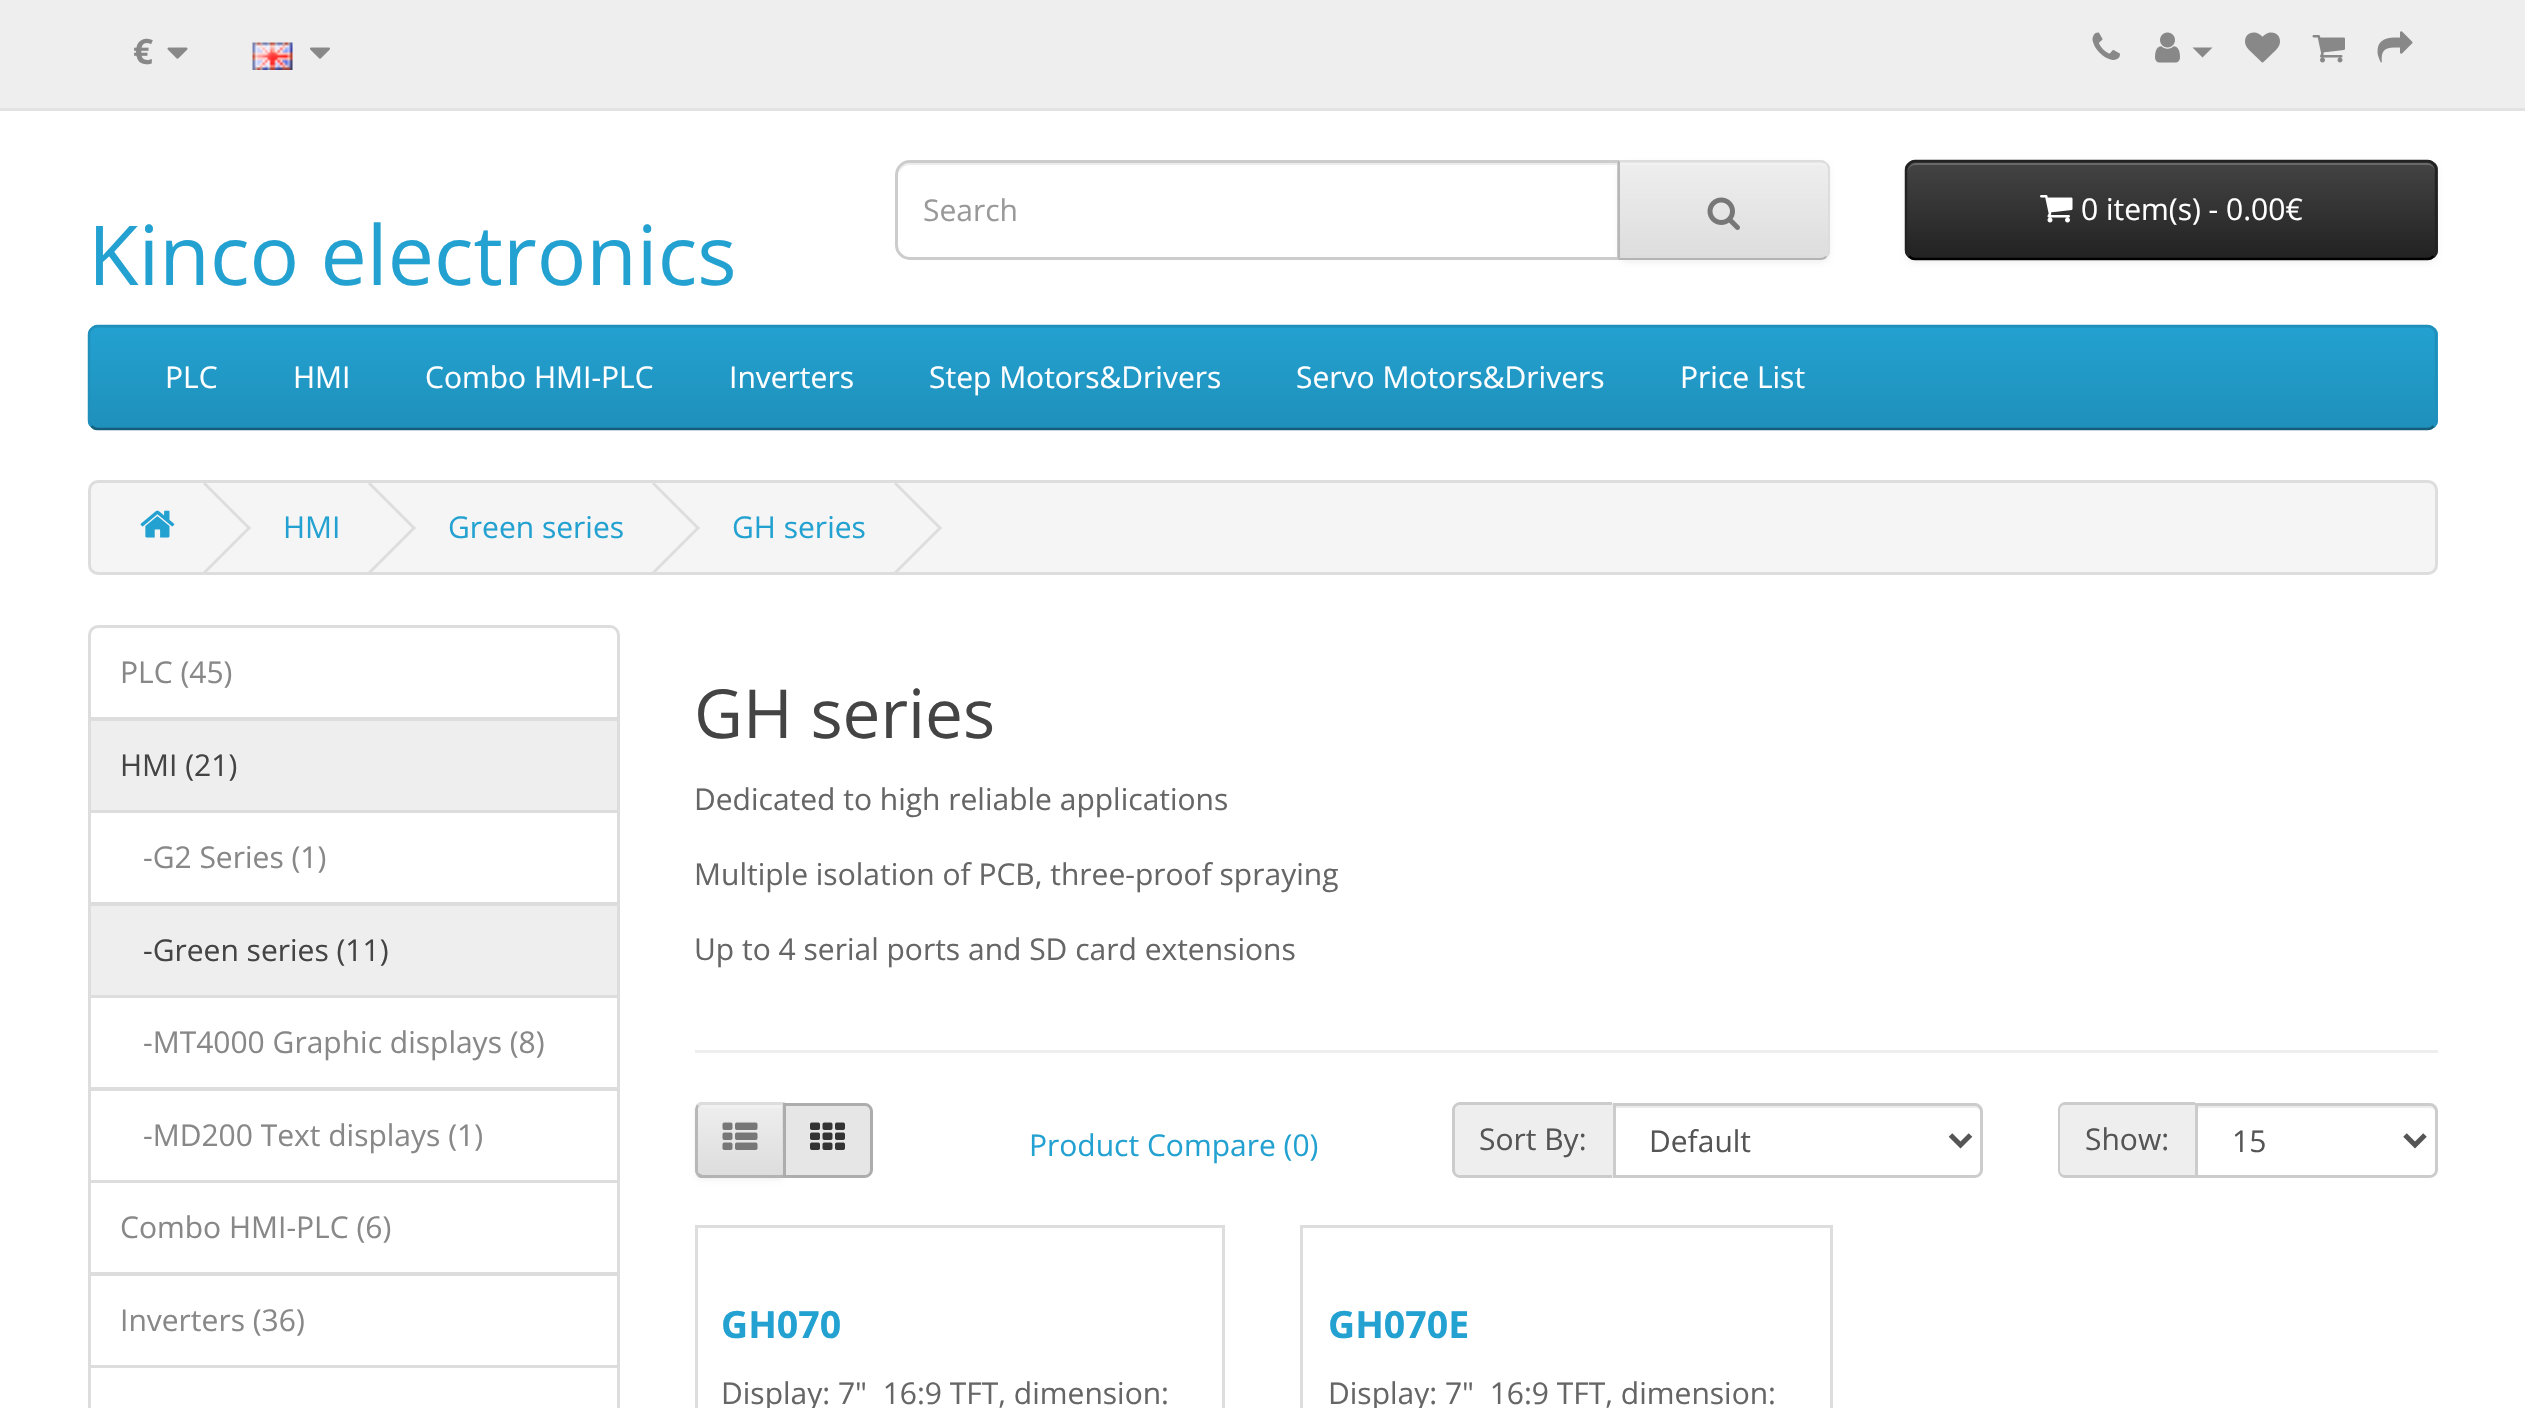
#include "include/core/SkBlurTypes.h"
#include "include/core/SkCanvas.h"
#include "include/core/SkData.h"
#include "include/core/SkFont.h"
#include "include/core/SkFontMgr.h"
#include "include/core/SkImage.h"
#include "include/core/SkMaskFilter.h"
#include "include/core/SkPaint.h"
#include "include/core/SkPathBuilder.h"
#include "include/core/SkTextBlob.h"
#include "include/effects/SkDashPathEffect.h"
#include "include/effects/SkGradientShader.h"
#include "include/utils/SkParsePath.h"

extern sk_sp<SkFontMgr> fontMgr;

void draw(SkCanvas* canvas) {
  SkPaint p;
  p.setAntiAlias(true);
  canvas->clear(SK_ColorWHITE);
  p.setColor(SkColorSetRGB(238, 238, 238));
  canvas->drawRect(SkRect::MakeLTRB(0, 0, 2525, 108), p);
  p.setColor(SkColorSetRGB(226, 226, 226));
  canvas->drawRect(SkRect::MakeLTRB(0, 108, 2525, 111), p);
  canvas->drawImageRect(SkImages::DeferredFromEncodedData(SkData::MakeFromFileName("images/1.png")), SkRect::MakeLTRB(167, 47, 188, 59), SkSamplingOptions());
  canvas->drawImageRect(SkImages::DeferredFromEncodedData(SkData::MakeFromFileName("images/2.png")), SkRect::MakeLTRB(252, 42, 293, 70), SkSamplingOptions());
  canvas->drawImageRect(SkImages::DeferredFromEncodedData(SkData::MakeFromFileName("images/3.png")), SkRect::MakeLTRB(310, 47, 330, 59), SkSamplingOptions());
  canvas->drawImageRect(SkImages::DeferredFromEncodedData(SkData::MakeFromFileName("images/4.png")), SkRect::MakeLTRB(2092, 32, 2120, 60), SkSamplingOptions());
  canvas->drawImageRect(SkImages::DeferredFromEncodedData(SkData::MakeFromFileName("images/5.png")), SkRect::MakeLTRB(2155, 32, 2180, 63), SkSamplingOptions());
  p.setColor(SkColorSetRGB(136, 136, 136));
  canvas->drawPath(SkPathBuilder().moveTo(2192.5f, 47.5f).lineTo(2212.5f, 47.5f).lineTo(2202.5f, 57.5f).close().detach(), p);
  canvas->drawImageRect(SkImages::DeferredFromEncodedData(SkData::MakeFromFileName("images/6.png")), SkRect::MakeLTRB(2245, 32, 2280, 63), SkSamplingOptions());
  canvas->drawImageRect(SkImages::DeferredFromEncodedData(SkData::MakeFromFileName("images/7.png")), SkRect::MakeLTRB(2312, 35, 2345, 63), SkSamplingOptions());
  canvas->drawImageRect(SkImages::DeferredFromEncodedData(SkData::MakeFromFileName("images/8.png")), SkRect::MakeLTRB(2377, 31, 2413, 63), SkSamplingOptions());
  p.setColor(SkColorSetRGB(236, 236, 236));
  canvas->drawPath(SkPathBuilder().moveTo(910, 165).lineTo(1618, 165).lineTo(1618, 163).lineTo(911, 163).cubicTo(902, 163, 898, 170, 898, 178).cubicTo(898, 171, 903, 165, 910, 165).close().detach(), p);
  p.setStyle(SkPaint::kStroke_Style);
  p.setStrokeWidth(3);
  p.setColor(SkColorSetRGB(204, 204, 204));
  canvas->drawPath(SkPathBuilder().moveTo(910, 161.5f).lineTo(1618.5f, 161.5f).lineTo(1618.5f, 258.5f).lineTo(910, 258.5f).cubicTo(902.5f, 258.5f, 896.5f, 252.5f, 896.5f, 245).lineTo(896.5f, 175).cubicTo(896.5f, 167.5f, 902.5f, 161.5f, 910, 161.5f).close().detach(), p);
  p.setStyle(SkPaint::kFill_Style);
  p.setColor(SkColorSetARGB(13, 0, 0, 0));
  p.setMaskFilter(SkMaskFilter::MakeBlur(kNormal_SkBlurStyle, 2.5f));
  canvas->drawRoundRect(SkRect::MakeLTRB(1618, 163, 1830, 263), 10, 10, p);
  p.setMaskFilter(nullptr);
  p.setColor(SkColorSetRGB(231, 231, 231));
  canvas->drawPath(SkPathBuilder().moveTo(1618, 160).lineTo(1820, 160).cubicTo(1825.5f, 160, 1830, 164.5f, 1830, 170).lineTo(1830, 250).cubicTo(1830, 255.5f, 1825.5f, 260, 1820, 260).lineTo(1618, 260).close().detach(), p);
  canvas->save();
  canvas->clipPath(SkPathBuilder().moveTo(1618, 160).lineTo(1820, 160).cubicTo(1825.5f, 160, 1830, 164.5f, 1830, 170).lineTo(1830, 250).cubicTo(1830, 255.5f, 1825.5f, 260, 1820, 260).lineTo(1618, 260).close().detach(), true);
  {
    const SkColor colors[] = {SkColorSetRGB(238, 238, 238), SkColorSetRGB(221, 221, 221)};
    const float stops[] = {0, 1};
    const SkPoint ends[] = {{1724, 163}, {1724, 258}};
    p.setShader(SkGradientShader::MakeLinear(ends, colors, stops, 2, SkTileMode::kClamp));
    p.setAlpha(255);
  }
  canvas->drawRect(SkRect::MakeLTRB(1620, 163, 1830, 258), p);
  canvas->restore();
  p.setShader(nullptr);
  p.setColor(SkColorSetRGB(241, 241, 241));
  canvas->drawPath(SkPathBuilder().moveTo(1620, 165).lineTo(1820, 165).cubicTo(1824, 165, 1828, 168, 1828, 172).lineTo(1828, 171).cubicTo(1828, 167, 1824, 163, 1820, 163).lineTo(1620, 163).close().detach(), p);
  p.setColor(SkColorSetRGB(221, 221, 221));
  canvas->drawPath(SkPathBuilder().moveTo(1618, 160).lineTo(1620, 162).lineTo(1820, 162).cubicTo(1822, 162, 1824, 163, 1826, 164).lineTo(1827, 163).cubicTo(1826, 161, 1823, 160, 1820, 160).close().detach(), p);
  canvas->drawPath(SkPathBuilder().moveTo(1830, 250).lineTo(1830, 170).cubicTo(1830, 167, 1829, 164, 1827, 163).lineTo(1826, 164).cubicTo(1827, 166, 1828, 168, 1828, 170).lineTo(1828, 250).cubicTo(1828, 252, 1827, 254, 1826, 256).lineTo(1827, 257).cubicTo(1829, 256, 1830, 253, 1830, 250).close().detach(), p);
  p.setColor(SkColorSetRGB(179, 179, 179));
  canvas->drawPath(SkPathBuilder().moveTo(1618, 260).lineTo(1820, 260).cubicTo(1823, 260, 1826, 259, 1827, 257).lineTo(1826, 256).cubicTo(1824, 257, 1822, 258, 1820, 258).lineTo(1620, 258).close().detach(), p);
  p.setColor(SkColorSetRGB(183, 183, 183));
  canvas->drawPath(SkPathBuilder().moveTo(1618, 160).lineTo(1618, 260).lineTo(1620, 258).lineTo(1620, 162).close().detach(), p);
  canvas->drawImageRect(SkImages::DeferredFromEncodedData(SkData::MakeFromFileName("images/9.png")), SkRect::MakeLTRB(1707, 197, 1740, 230), SkSamplingOptions());
  p.setColor(SkColorSetARGB(13, 0, 0, 0));
  p.setMaskFilter(SkMaskFilter::MakeBlur(kNormal_SkBlurStyle, 2.5f));
  canvas->drawRoundRect(SkRect::MakeLTRB(1905, 163, 2438, 263), 10, 10, p);
  p.setMaskFilter(nullptr);
  p.setColor(SkColorSetRGB(54, 54, 54));
  canvas->drawRoundRect(SkRect::MakeLTRB(1905, 160, 2438, 260), 10, 10, p);
  canvas->save();
  canvas->clipPath(SkPathBuilder().moveTo(1915, 160).lineTo(2428, 160).cubicTo(2433.5f, 160, 2438, 164.5f, 2438, 170).lineTo(2438, 250).cubicTo(2438, 255.5f, 2433.5f, 260, 2428, 260).lineTo(1915, 260).cubicTo(1909.5f, 260, 1905, 255.5f, 1905, 250).lineTo(1905, 170).cubicTo(1905, 164.5f, 1909.5f, 160, 1915, 160).close().detach(), true);
  {
    const SkColor colors[] = {SkColorSetRGB(68, 68, 68), SkColorSetRGB(34, 34, 34)};
    const float stops[] = {0, 1};
    const SkPoint ends[] = {{2171, 162}, {2171, 258}};
    p.setShader(SkGradientShader::MakeLinear(ends, colors, stops, 2, SkTileMode::kClamp));
    p.setAlpha(255);
  }
  canvas->drawRect(SkRect::MakeLTRB(1905, 163, 2438, 258), p);
  canvas->restore();
  p.setShader(nullptr);
  p.setColor(SkColorSetRGB(105, 105, 105));
  canvas->drawPath(SkPathBuilder().moveTo(1915, 165).lineTo(2428, 165).cubicTo(2432, 165, 2435, 168, 2435, 172).lineTo(2435, 171).cubicTo(2435, 167, 2431, 163, 2427, 163).lineTo(1916, 163).cubicTo(1912, 163, 1908, 167, 1908, 171).lineTo(1908, 172).cubicTo(1908, 168, 1911, 165, 1915, 165).close().detach(), p);
  p.setStyle(SkPaint::kStroke_Style);
  p.setStrokeWidth(2.5f);
  p.setColor(SK_ColorBLACK);
  canvas->drawPath(SkPathBuilder().moveTo(2433.5f, 256).cubicTo(2432, 258, 2430, 259, 2427.5f, 259).lineTo(1915, 259).cubicTo(1912.5f, 259, 1910.5f, 258, 1909, 256).detach(), p);
  p.setColor(SkColorSetRGB(34, 34, 34));
  canvas->drawPath(SkPathBuilder().moveTo(1909, 256).cubicTo(1907, 254.5f, 1906, 252.5f, 1906, 250).lineTo(1906, 170).cubicTo(1906, 167.5f, 1907, 165.5f, 1909, 164).cubicTo(1910.5f, 162, 1912.5f, 161, 1915, 161).lineTo(2427.5f, 161).cubicTo(2430, 161, 2432, 162, 2433.5f, 164).cubicTo(2435.5f, 165.5f, 2436, 167.5f, 2436, 170).lineTo(2436, 250).cubicTo(2436, 252.5f, 2435.5f, 254.5f, 2433.5f, 256).detach(), p);
  canvas->drawImageRect(SkImages::DeferredFromEncodedData(SkData::MakeFromFileName("images/10.png")), SkRect::MakeLTRB(2040, 195, 2073, 223), SkSamplingOptions());
  p.setStyle(SkPaint::kFill_Style);
  p.setColor(SkColorSetRGB(34, 154, 200));
  canvas->drawRoundRect(SkRect::MakeLTRB(88, 325, 2438, 430), 10, 10, p);
  canvas->save();
  canvas->clipPath(SkPathBuilder().moveTo(98, 325).lineTo(2428, 325).cubicTo(2433.5f, 325, 2438, 329.5f, 2438, 335).lineTo(2438, 420).cubicTo(2438, 425.5f, 2433.5f, 430, 2428, 430).lineTo(98, 430).cubicTo(92.5f, 430, 88, 425.5f, 88, 420).lineTo(88, 335).cubicTo(88, 329.5f, 92.5f, 325, 98, 325).close().detach(), true);
  {
    const SkColor colors[] = {SkColorSetRGB(35, 161, 209), SkColorSetRGB(31, 144, 187)};
    const float stops[] = {0, 1};
    const SkPoint ends[] = {{1263, 327}, {1263, 428}};
    p.setShader(SkGradientShader::MakeLinear(ends, colors, stops, 2, SkTileMode::kClamp));
    p.setAlpha(255);
  }
  canvas->drawRect(SkRect::MakeLTRB(88, 328, 2438, 428), p);
  canvas->restore();
  p.setStyle(SkPaint::kStroke_Style);
  p.setShader(nullptr);
  p.setColor(SkColorSetRGB(20, 94, 122));
  canvas->drawPath(SkPathBuilder().moveTo(2433.5f, 426).cubicTo(2432, 428, 2430, 429, 2427.5f, 429).lineTo(97.5f, 429).cubicTo(95, 429, 93, 428, 91.5f, 426).detach(), p);
  p.setColor(SkColorSetRGB(31, 144, 187));
  canvas->drawPath(SkPathBuilder().moveTo(91.5f, 426).cubicTo(89.5f, 424.5f, 89, 422.5f, 89, 420).lineTo(89, 335).cubicTo(89, 332.5f, 89.5f, 330.5f, 91.5f, 329).cubicTo(93, 327, 95, 326, 97.5f, 326).lineTo(2427.5f, 326).cubicTo(2430, 326, 2432, 327, 2433.5f, 329).cubicTo(2435.5f, 330.5f, 2436, 332.5f, 2436, 335).lineTo(2436, 420).cubicTo(2436, 422.5f, 2435.5f, 424.5f, 2433.5f, 426).detach(), p);
  p.setStyle(SkPaint::kFill_Style);
  p.setColor(SkColorSetRGB(245, 245, 245));
  canvas->drawRoundRect(SkRect::MakeLTRB(89.5f, 481.5f, 2436.5f, 573.5f), 8.5f, 8.5f, p);
  p.setStyle(SkPaint::kStroke_Style);
  p.setStrokeWidth(3);
  p.setColor(SkColorSetRGB(221, 221, 221));
  canvas->drawRoundRect(SkRect::MakeLTRB(89.5f, 481.5f, 2436.5f, 573.5f), 8.5f, 8.5f, p);
  canvas->drawImageRect(SkImages::DeferredFromEncodedData(SkData::MakeFromFileName("images/11.png")), SkRect::MakeLTRB(140, 510, 175, 538), SkSamplingOptions());
  p.setStyle(SkPaint::kFill_Style);
  canvas->drawPath(SkPathBuilder().moveTo(203, 484).lineTo(205, 482).lineTo(251, 528).lineTo(249, 530).close().detach(), p);
  canvas->drawPath(SkPathBuilder().moveTo(203, 572).lineTo(249, 526).lineTo(251, 528).lineTo(205, 574).close().detach(), p);
  canvas->drawPath(SkPathBuilder().moveTo(368, 484).lineTo(370, 482).lineTo(416, 528).lineTo(414, 530).close().detach(), p);
  canvas->drawPath(SkPathBuilder().moveTo(368, 572).lineTo(414, 526).lineTo(416, 528).lineTo(370, 574).close().detach(), p);
  canvas->drawPath(SkPathBuilder().moveTo(652, 484).lineTo(654, 482).lineTo(700, 528).lineTo(698, 530).close().detach(), p);
  canvas->drawPath(SkPathBuilder().moveTo(652, 572).lineTo(698, 526).lineTo(700, 528).lineTo(654, 574).close().detach(), p);
  canvas->drawPath(SkPathBuilder().moveTo(894, 484).lineTo(896, 482).lineTo(942, 528).lineTo(940, 530).close().detach(), p);
  canvas->drawPath(SkPathBuilder().moveTo(894, 572).lineTo(940, 526).lineTo(942, 528).lineTo(896, 574).close().detach(), p);
  p.setStyle(SkPaint::kStroke_Style);
  canvas->drawPath(SkPathBuilder().moveTo(98, 626.5f).lineTo(610, 626.5f).cubicTo(614.5f, 626.5f, 618.5f, 630.5f, 618.5f, 635).lineTo(618.5f, 718.5f).lineTo(89.5f, 718.5f).lineTo(89.5f, 635).cubicTo(89.5f, 630.5f, 93.5f, 626.5f, 98, 626.5f).close().detach(), p);
  canvas->drawRect(SkRect::MakeLTRB(89.5f, 811.5f, 618.5f, 903.5f), p);
  p.setStyle(SkPaint::kFill_Style);
  p.setColor(SkColorSetRGB(238, 238, 238));
  canvas->drawRect(SkRect::MakeLTRB(89.5f, 719.5f, 618.5f, 811.5f), p);
  p.setStyle(SkPaint::kStroke_Style);
  p.setColor(SkColorSetRGB(221, 221, 221));
  canvas->drawRect(SkRect::MakeLTRB(89.5f, 719.5f, 618.5f, 811.5f), p);
  canvas->drawRect(SkRect::MakeLTRB(89.5f, 996.5f, 618.5f, 1088.5f), p);
  p.setStyle(SkPaint::kFill_Style);
  p.setColor(SkColorSetRGB(238, 238, 238));
  canvas->drawRect(SkRect::MakeLTRB(89.5f, 904.5f, 618.5f, 996.5f), p);
  p.setStyle(SkPaint::kStroke_Style);
  p.setColor(SkColorSetRGB(221, 221, 221));
  canvas->drawRect(SkRect::MakeLTRB(89.5f, 904.5f, 618.5f, 996.5f), p);
  canvas->drawRect(SkRect::MakeLTRB(89.5f, 1089.5f, 618.5f, 1181.5f), p);
  canvas->drawRect(SkRect::MakeLTRB(89.5f, 1181.5f, 618.5f, 1273.5f), p);
  canvas->drawRect(SkRect::MakeLTRB(89.5f, 1274.5f, 618.5f, 1366.5f), p);
  canvas->drawRect(SkRect::MakeLTRB(89.5f, 1366.5f, 618.5f, 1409.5f), p);
  p.setStyle(SkPaint::kFill_Style);
  p.setColor(SkColorSetRGB(238, 238, 238));
  canvas->drawRect(SkRect::MakeLTRB(695, 1050, 2438, 1053), p);
  p.setColor(SkColorSetARGB(13, 0, 0, 0));
  p.setMaskFilter(SkMaskFilter::MakeBlur(kNormal_SkBlurStyle, 2.5f));
  canvas->drawRoundRect(SkRect::MakeLTRB(695, 1105, 785, 1180), 8, 8, p);
  p.setMaskFilter(nullptr);
  canvas->save();
  canvas->clipPath(SkPathBuilder().moveTo(703, 1103).lineTo(785, 1103).lineTo(785, 1178).lineTo(703, 1178).cubicTo(698.5f, 1178, 695, 1174.5f, 695, 1170).lineTo(695, 1111).cubicTo(695, 1106.5f, 698.5f, 1103, 703, 1103).close().detach(), true);
  {
    const SkColor colors[] = {SkColorSetRGB(238, 238, 238), SkColorSetRGB(221, 221, 221)};
    const float stops[] = {0, 1};
    const SkPoint ends[] = {{740, 1105}, {740, 1175}};
    p.setShader(SkGradientShader::MakeLinear(ends, colors, stops, 2, SkTileMode::kClamp));
    p.setAlpha(255);
  }
  canvas->drawRect(SkRect::MakeLTRB(695, 1105, 783, 1175), p);
  canvas->restore();
  p.setShader(nullptr);
  p.setColor(SkColorSetARGB(51, 255, 255, 255));
  canvas->drawPath(SkPathBuilder().moveTo(702, 1108).lineTo(782, 1108).lineTo(782, 1175).lineTo(783, 1175).lineTo(783, 1105).lineTo(703, 1105).cubicTo(700, 1105, 698, 1107, 698, 1110).lineTo(698, 1112).cubicTo(698, 1110, 700, 1108, 702, 1108).close().detach(), p);
  p.setColor(SkColorSetRGB(221, 221, 221));
  canvas->drawPath(SkPathBuilder().moveTo(702, 1105).cubicTo(701, 1105, 700, 1106, 699, 1107).lineTo(697, 1104).lineTo(700, 1102).lineTo(785, 1102).lineTo(782, 1106).lineTo(782, 1105).close().detach(), p);
  canvas->drawPath(SkPathBuilder().moveTo(785, 1102).lineTo(782, 1106).lineTo(782, 1174).lineTo(785, 1178).close().detach(), p);
  p.setColor(SkColorSetRGB(179, 179, 179));
  canvas->drawPath(SkPathBuilder().moveTo(785, 1178).lineTo(700, 1178).lineTo(697, 1176).lineTo(699, 1173).lineTo(702, 1175).lineTo(782, 1175).lineTo(782, 1174).close().detach(), p);
  p.setColor(SkColorSetRGB(183, 183, 183));
  canvas->drawPath(SkPathBuilder().moveTo(695, 1110).lineTo(695, 1170).cubicTo(695, 1172, 696, 1174, 697, 1176).lineTo(699, 1173).cubicTo(698, 1173, 698, 1171, 698, 1170).lineTo(698, 1110).cubicTo(698, 1109, 698, 1107, 699, 1107).lineTo(697, 1104).cubicTo(696, 1106, 695, 1108, 695, 1110).close().detach(), p);
  canvas->drawImageRect(SkImages::DeferredFromEncodedData(SkData::MakeFromFileName("images/12.png")), SkRect::MakeLTRB(722, 1122, 758, 1150), SkSamplingOptions());
  p.setColor(SkColorSetRGB(230, 230, 230));
  canvas->drawPath(SkPathBuilder().moveTo(784.5f, 1104.5f).lineTo(865, 1104.5f).cubicTo(868.5f, 1104.5f, 871.5f, 1107.5f, 871.5f, 1111).lineTo(871.5f, 1170).cubicTo(871.5f, 1173.5f, 868.5f, 1176.5f, 865, 1176.5f).lineTo(784.5f, 1176.5f).close().detach(), p);
  p.setStyle(SkPaint::kStroke_Style);
  p.setColor(SkColorSetRGB(173, 173, 173));
  canvas->drawPath(SkPathBuilder().moveTo(784.5f, 1104.5f).lineTo(865, 1104.5f).cubicTo(868.5f, 1104.5f, 871.5f, 1107.5f, 871.5f, 1111).lineTo(871.5f, 1170).cubicTo(871.5f, 1173.5f, 868.5f, 1176.5f, 865, 1176.5f).lineTo(784.5f, 1176.5f).close().detach(), p);
  canvas->drawImageRect(SkImages::DeferredFromEncodedData(SkData::MakeFromFileName("images/13.png")), SkRect::MakeLTRB(810, 1122, 845, 1150), SkSamplingOptions());
  p.setStyle(SkPaint::kFill_Style);
  p.setColor(SkColorSetRGB(238, 238, 238));
  canvas->drawPath(SkPathBuilder().moveTo(1461, 1103).lineTo(1613, 1103).lineTo(1613, 1178).lineTo(1461, 1178).cubicTo(1456.5f, 1178, 1453, 1174.5f, 1453, 1170).lineTo(1453, 1111).cubicTo(1453, 1106.5f, 1456.5f, 1103, 1461, 1103).close().detach(), p);
  p.setColor(SkColorSetRGB(204, 204, 204));
  canvas->drawPath(SkPathBuilder(SkPathFillType::kEvenOdd).moveTo(1460, 1102).lineTo(1612, 1102).lineTo(1612, 1178).lineTo(1460, 1178).cubicTo(1456, 1178, 1452, 1174, 1452, 1170).lineTo(1452, 1110).cubicTo(1452, 1106, 1456, 1102, 1460, 1102).close().moveTo(1460, 1105).lineTo(1612, 1105).lineTo(1612, 1175).lineTo(1460, 1175).cubicTo(1457, 1175, 1455, 1173, 1455, 1170).lineTo(1455, 1110).cubicTo(1455, 1107, 1457, 1105, 1460, 1105).close().detach(), p);
  p.setColor(SkColorSetRGB(236, 236, 236));
  canvas->drawPath(SkPathBuilder().moveTo(1615, 1108).lineTo(1975, 1108).cubicTo(1978, 1108, 1980, 1110, 1980, 1112).cubicTo(1980, 1109, 1979, 1105, 1975, 1105).lineTo(1615, 1105).close().detach(), p);
  p.setStyle(SkPaint::kStroke_Style);
  p.setColor(SkColorSetRGB(204, 204, 204));
  canvas->drawPath(SkPathBuilder().moveTo(1614.5f, 1104.5f).lineTo(1975, 1104.5f).cubicTo(1978.5f, 1104.5f, 1981.5f, 1107.5f, 1981.5f, 1111).lineTo(1981.5f, 1170).cubicTo(1981.5f, 1173.5f, 1978.5f, 1176.5f, 1975, 1176.5f).lineTo(1614.5f, 1176.5f).close().detach(), p);
  p.setStrokeWidth(5);
  p.setColor(SkColorSetRGB(85, 85, 85));
  canvas->drawPath(SkPathBuilder().moveTo(1950.5f, 1135).lineTo(1960.5f, 1145).lineTo(1970.5f, 1135).detach(), p);
  p.setStyle(SkPaint::kFill_Style);
  p.setColor(SkColorSetRGB(238, 238, 238));
  canvas->drawPath(SkPathBuilder().moveTo(2066, 1103).lineTo(2195, 1103).lineTo(2195, 1178).lineTo(2066, 1178).cubicTo(2061.5f, 1178, 2058, 1174.5f, 2058, 1170).lineTo(2058, 1111).cubicTo(2058, 1106.5f, 2061.5f, 1103, 2066, 1103).close().detach(), p);
  p.setColor(SkColorSetRGB(204, 204, 204));
  canvas->drawPath(SkPathBuilder(SkPathFillType::kEvenOdd).moveTo(2065, 1102).lineTo(2195, 1102).lineTo(2195, 1178).lineTo(2065, 1178).cubicTo(2061, 1178, 2058, 1174, 2058, 1170).lineTo(2058, 1110).cubicTo(2058, 1106, 2061, 1102, 2065, 1102).close().moveTo(2065, 1105).lineTo(2195, 1105).lineTo(2195, 1175).lineTo(2065, 1175).cubicTo(2062, 1175, 2060, 1173, 2060, 1170).lineTo(2060, 1110).cubicTo(2060, 1107, 2062, 1105, 2065, 1105).close().detach(), p);
  p.setColor(SkColorSetRGB(236, 236, 236));
  canvas->drawPath(SkPathBuilder().moveTo(2198, 1108).lineTo(2430, 1108).cubicTo(2433, 1108, 2435, 1110, 2435, 1112).cubicTo(2435, 1109, 2434, 1105, 2430, 1105).lineTo(2198, 1105).close().detach(), p);
  p.setStyle(SkPaint::kStroke_Style);
  p.setStrokeWidth(3);
  p.setColor(SkColorSetRGB(204, 204, 204));
  canvas->drawPath(SkPathBuilder().moveTo(2196.5f, 1104.5f).lineTo(2430, 1104.5f).cubicTo(2433.5f, 1104.5f, 2436.5f, 1107.5f, 2436.5f, 1111).lineTo(2436.5f, 1170).cubicTo(2436.5f, 1173.5f, 2433.5f, 1176.5f, 2430, 1176.5f).lineTo(2196.5f, 1176.5f).close().detach(), p);
  p.setStrokeWidth(5);
  p.setColor(SkColorSetRGB(85, 85, 85));
  canvas->drawPath(SkPathBuilder().moveTo(2405, 1135).lineTo(2415, 1145).lineTo(2425, 1135).detach(), p);
  p.setStrokeWidth(3);
  p.setColor(SkColorSetRGB(221, 221, 221));
  canvas->drawRect(SkRect::MakeLTRB(696.5f, 1226.5f, 1223.5f, 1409.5f), p);
  canvas->drawRect(SkRect::MakeLTRB(1301.5f, 1226.5f, 1831.5f, 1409.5f), p);
  SkFont font1(fontMgr->matchFamilyStyle("Open Sans", SkFontStyle::Bold()), 35);
  font1.setSubpixel(true);
  p.setStyle(SkPaint::kFill_Style);
  p.setColor(SkColorSetRGB(136, 136, 136));
  canvas->drawString("€", 133, 64, font1, p);
  SkFont font2(fontMgr->matchFamilyStyle("Open Sans", SkFontStyle::Normal()), 30);
  font2.setSubpixel(true);
  p.setColor(SkColorSetRGB(153, 153, 153));
  canvas->drawString("Search", 923, 221, font2, p);
  p.setColor(SK_ColorWHITE);
  canvas->drawString("0 item(s) - 0.00€", 2081, 220, font2, p);
  SkFont font3(fontMgr->matchFamilyStyle("Open Sans", SkFontStyle::Normal()), 82.5f);
  font3.setSubpixel(true);
  p.setColor(SkColorSetRGB(35, 161, 209));
  canvas->drawString("Kinco electronics", 88, 285, font3, p);
  p.setColor(SK_ColorWHITE);
  canvas->drawString("PLC", 165, 388, font2, p);
  canvas->drawString("HMI", 293, 388, font2, p);
  canvas->drawString("Combo HMI-PLC", 425, 388, font2, p);
  canvas->drawString("Inverters", 729, 388, font2, p);
  canvas->drawString("Step Motors&Drivers", 929, 388, font2, p);
  canvas->drawString("Servo Motors&Drivers", 1296, 388, font2, p);
  canvas->drawString("Price List", 1680, 388, font2, p);
  p.setColor(SkColorSetRGB(35, 161, 209));
  canvas->drawString("HMI", 283, 538, font2, p);
  canvas->drawString("Green series", 448, 538, font2, p);
  canvas->drawString("GH series", 732, 538, font2, p);
  p.setColor(SkColorSetRGB(136, 136, 136));
  canvas->drawString("PLC (45)", 120, 683, font2, p);
  p.setColor(SkColorSetRGB(68, 68, 68));
  canvas->drawString("HMI (21)", 120, 776, font2, p);
  p.setColor(SkColorSetRGB(136, 136, 136));
  canvas->drawString("-G2 Series (1)", 143, 868, font2, p);
  p.setColor(SkColorSetRGB(68, 68, 68));
  canvas->drawString("-Green series (11)", 143, 961, font2, p);
  p.setColor(SkColorSetRGB(136, 136, 136));
  canvas->drawString("-MT4000 Graphic displays (8)", 143, 1053, font2, p);
  canvas->drawString("-MD200 Text displays (1)", 143, 1146, font2, p);
  canvas->drawString("Combo HMI-PLC (6)", 120, 1238, font2, p);
  canvas->drawString("Inverters (36)", 120, 1331, font2, p);
  SkFont font4(fontMgr->matchFamilyStyle("Open Sans", SkFontStyle::Normal()), 67.5f);
  font4.setSubpixel(true);
  p.setColor(SkColorSetRGB(68, 68, 68));
  canvas->drawString("GH series", 694, 738, font4, p);
  p.setColor(SkColorSetRGB(102, 102, 102));
  canvas->drawString("Dedicated to high reliable applications", 694, 810, font2, p);
  canvas->drawString("Multiple isolation of PCB, three-proof spraying", 694, 885, font2, p);
  canvas->drawString("Up to 4 serial ports and SD card extensions", 694, 960, font2, p);
  p.setColor(SkColorSetRGB(35, 161, 209));
  canvas->drawString("Product Compare (0)", 1029, 1156, font2, p);
  p.setColor(SkColorSetRGB(85, 85, 85));
  canvas->drawString("Sort By:", 1479, 1150, font2, p);
  canvas->drawString("Default", 1649, 1152, font2, p);
  canvas->drawString("Show:", 2085, 1150, font2, p);
  canvas->drawString("15", 2232, 1152, font2, p);
  SkFont font5(fontMgr->matchFamilyStyle("Open Sans", SkFontStyle::Bold()), 37.5f);
  font5.setSubpixel(true);
  p.setColor(SkColorSetRGB(35, 161, 209));
  canvas->drawString("GH070", 721, 1338, font5, p);
  p.setColor(SkColorSetRGB(102, 102, 102));
  canvas->drawString("Display: 7\"  16:9 TFT, dimension:", 721, 1404, font2, p);
  p.setColor(SkColorSetRGB(35, 161, 209));
  canvas->drawString("GH070E", 1328, 1338, font5, p);
  p.setColor(SkColorSetRGB(102, 102, 102));
  canvas->drawString("Display: 7\"  16:9 TFT, dimension:", 1328, 1404, font2, p);
}
